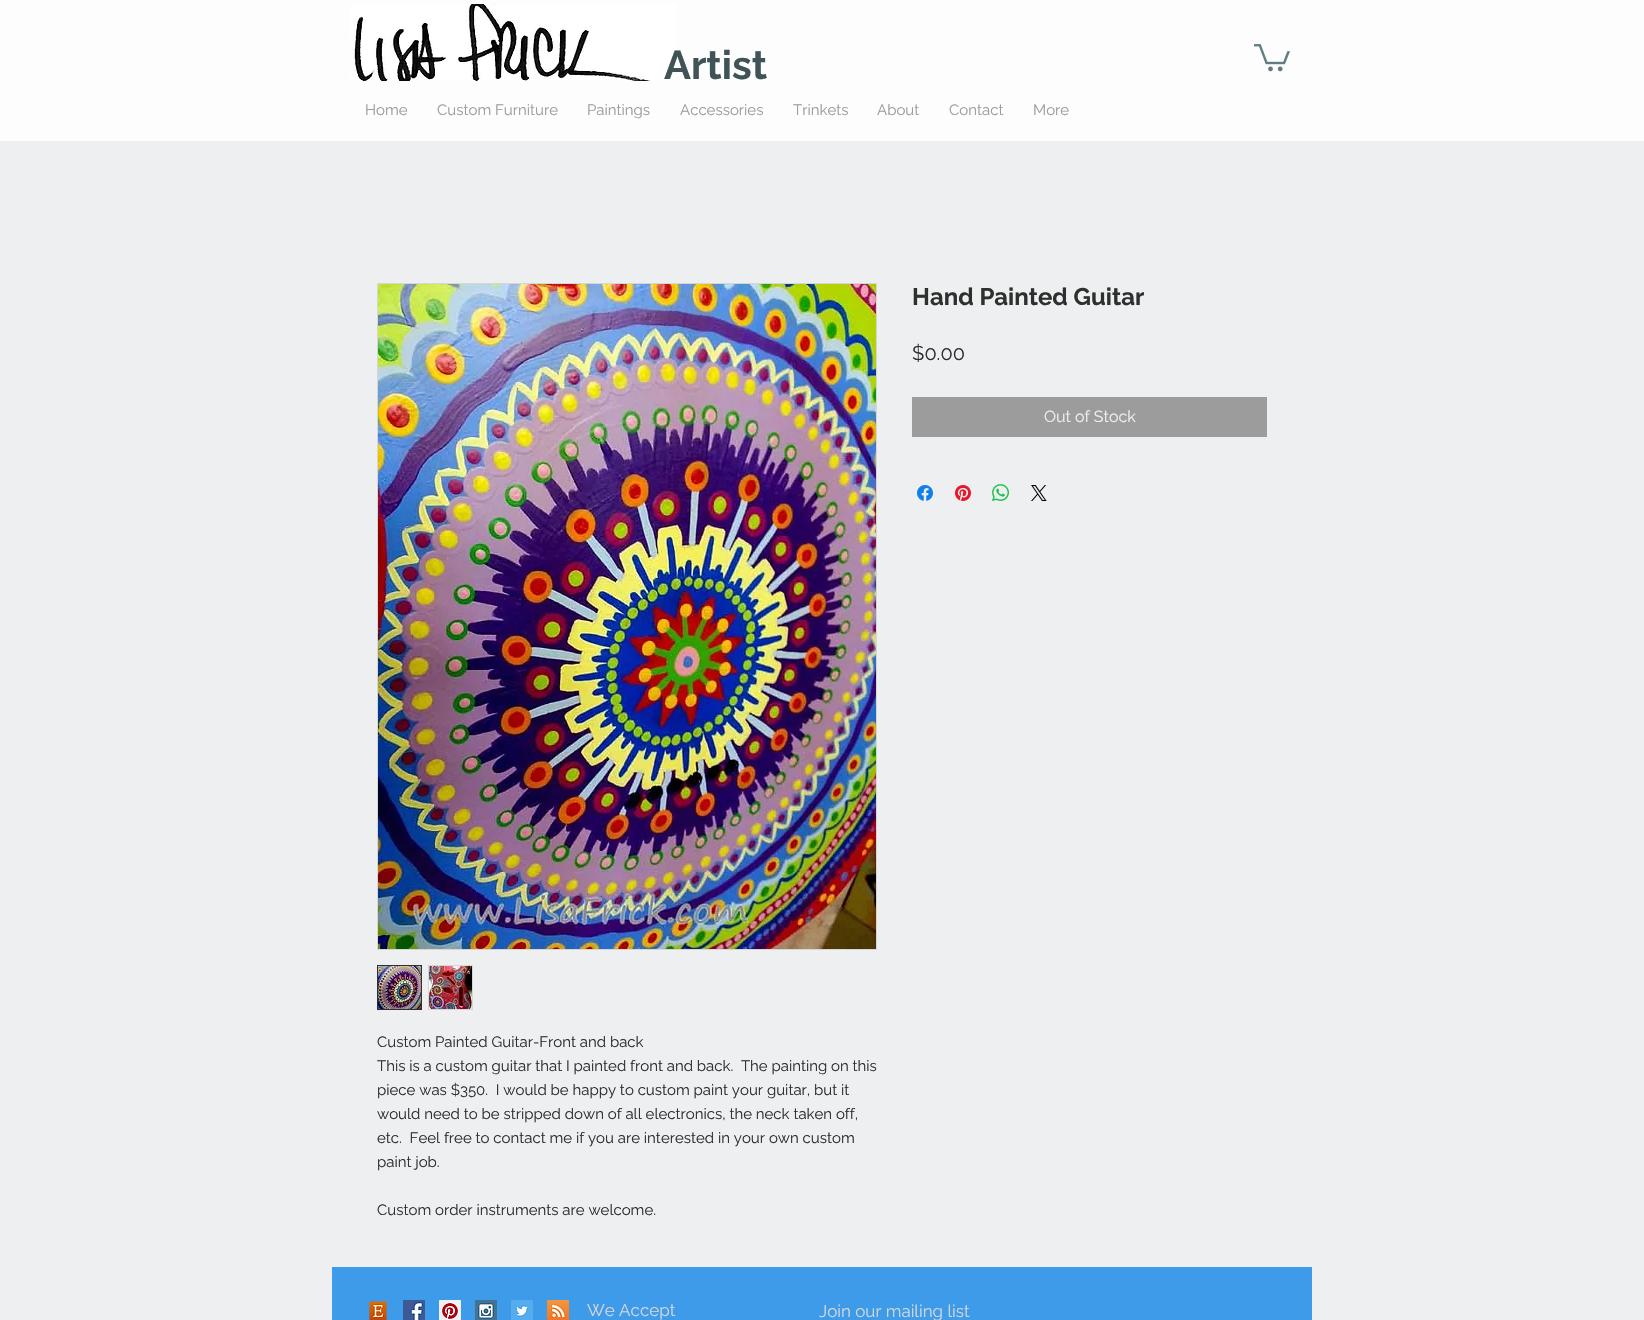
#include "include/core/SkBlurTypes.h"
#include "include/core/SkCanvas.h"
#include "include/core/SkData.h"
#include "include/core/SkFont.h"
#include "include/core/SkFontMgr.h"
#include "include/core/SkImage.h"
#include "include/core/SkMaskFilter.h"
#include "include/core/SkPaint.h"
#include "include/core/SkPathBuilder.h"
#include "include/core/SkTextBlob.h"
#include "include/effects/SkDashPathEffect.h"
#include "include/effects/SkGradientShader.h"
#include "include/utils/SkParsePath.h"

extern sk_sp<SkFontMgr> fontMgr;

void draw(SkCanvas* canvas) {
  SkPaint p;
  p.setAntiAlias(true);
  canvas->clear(SkColorSetRGB(237, 239, 240));
  p.setColor(SkColorSetRGB(253, 253, 254));
  canvas->drawRect(SkRect::MakeLTRB(0, 0, 1644, 141), p);
  canvas->drawImageRect(SkImages::DeferredFromEncodedData(SkData::MakeFromFileName("images/1.png")), SkRect::MakeLTRB(350, 4, 676, 81), SkSamplingOptions());
  canvas->drawImageRect(SkImages::DeferredFromEncodedData(SkData::MakeFromFileName("images/2.png")), SkRect::MakeLTRB(1254, 44, 1290, 72), SkSamplingOptions());
  p.setColor(SkColorSetRGB(156, 156, 156));
  canvas->drawRect(SkRect::MakeLTRB(912, 397, 1267, 437), p);
  canvas->drawImageRect(SkImages::DeferredFromEncodedData(SkData::MakeFromFileName("images/3.png")), SkRect::MakeLTRB(917, 485, 933, 501), SkSamplingOptions());
  canvas->drawImageRect(SkImages::DeferredFromEncodedData(SkData::MakeFromFileName("images/4.png")), SkRect::MakeLTRB(955, 485, 971, 501), SkSamplingOptions());
  canvas->drawImageRect(SkImages::DeferredFromEncodedData(SkData::MakeFromFileName("images/5.png")), SkRect::MakeLTRB(992, 484, 1009, 501), SkSamplingOptions());
  canvas->drawImageRect(SkImages::DeferredFromEncodedData(SkData::MakeFromFileName("images/6.png")), SkRect::MakeLTRB(1031, 485, 1047, 501), SkSamplingOptions());
  p.setStyle(SkPaint::kStroke_Style);
  p.setStrokeWidth(1);
  p.setColor(SkColorSetRGB(214, 214, 214));
  canvas->drawRect(SkRect::MakeLTRB(377.5f, 283.5f, 876.5f, 949.5f), p);
  canvas->drawImageRect(SkImages::DeferredFromEncodedData(SkData::MakeFromFileName("images/7.png")), SkRect::MakeLTRB(378, 284, 876, 949), SkSamplingOptions());
  p.setColor(SkColorSetRGB(47, 47, 47));
  canvas->drawRect(SkRect::MakeLTRB(377.5f, 965.5f, 421.5f, 1009.5f), p);
  canvas->drawImageRect(SkImages::DeferredFromEncodedData(SkData::MakeFromFileName("images/8.png")), SkRect::MakeLTRB(378, 966, 421, 1009), SkSamplingOptions());
  p.setStyle(SkPaint::kFill_Style);
  p.setColor(SkColorSetRGB(214, 214, 214));
  canvas->drawRect(SkRect::MakeLTRB(428, 965, 473, 1010), p);
  canvas->drawImageRect(SkImages::DeferredFromEncodedData(SkData::MakeFromFileName("images/9.png")), SkRect::MakeLTRB(429, 966, 472, 1009), SkSamplingOptions());
  p.setColor(SkColorSetRGB(61, 155, 233));
  canvas->drawRect(SkRect::MakeLTRB(332, 1267, 1312, 1320), p);
  canvas->drawImageRect(SkImages::DeferredFromEncodedData(SkData::MakeFromFileName("images/10.png")), SkRect::MakeLTRB(369, 1301, 387, 1320), SkSamplingOptions());
  canvas->drawImageRect(SkImages::DeferredFromEncodedData(SkData::MakeFromFileName("images/11.png")), SkRect::MakeLTRB(403, 1300, 425, 1320), SkSamplingOptions());
  canvas->drawImageRect(SkImages::DeferredFromEncodedData(SkData::MakeFromFileName("images/12.png")), SkRect::MakeLTRB(439, 1300, 461, 1320), SkSamplingOptions());
  canvas->drawImageRect(SkImages::DeferredFromEncodedData(SkData::MakeFromFileName("images/13.png")), SkRect::MakeLTRB(475, 1300, 497, 1320), SkSamplingOptions());
  canvas->drawImageRect(SkImages::DeferredFromEncodedData(SkData::MakeFromFileName("images/14.png")), SkRect::MakeLTRB(511, 1300, 533, 1320), SkSamplingOptions());
  canvas->drawImageRect(SkImages::DeferredFromEncodedData(SkData::MakeFromFileName("images/15.png")), SkRect::MakeLTRB(547, 1300, 569, 1320), SkSamplingOptions());
  SkFont font1(fontMgr->matchFamilyStyle("Raleway", SkFontStyle::Bold()), 40);
  font1.setSubpixel(true);
  p.setColor(SkColorSetRGB(64, 83, 87));
  canvas->drawString("Artist", 664, 79, font1, p);
  SkFont font2(fontMgr->matchFamilyStyle("Raleway", SkFontStyle::Normal()), 15);
  font2.setSubpixel(true);
  p.setColor(SkColorSetRGB(156, 156, 156));
  canvas->drawString("Home", 365, 115, font2, p);
  canvas->drawString("Custom Furniture", 437, 115, font2, p);
  canvas->drawString("Paintings", 587, 115, font2, p);
  canvas->drawString("Accessories", 680, 115, font2, p);
  canvas->drawString("Trinkets", 793, 115, font2, p);
  canvas->drawString("About", 877, 115, font2, p);
  canvas->drawString("Contact", 949, 115, font2, p);
  canvas->drawString("More", 1033, 115, font2, p);
  SkFont font3(fontMgr->matchFamilyStyle("Raleway", SkFontStyle::Bold()), 24);
  font3.setSubpixel(true);
  p.setColor(SkColorSetRGB(47, 47, 47));
  canvas->drawString("Hand Painted Guitar", 912, 305, font3, p);
  SkFont font4(fontMgr->matchFamilyStyle("Raleway", SkFontStyle::Normal()), 20);
  font4.setSubpixel(true);
  canvas->drawString("$0.00", 912, 360, font4, p);
  SkFont font5(fontMgr->matchFamilyStyle("Raleway", SkFontStyle::Normal()), 16);
  font5.setSubpixel(true);
  p.setColor(SkColorSetRGB(237, 239, 240));
  canvas->drawString("Out of Stock", 1044, 422, font5, p);
  p.setColor(SkColorSetRGB(47, 47, 47));
  canvas->drawString("Custom Painted Guitar-Front and back", 377, 1047, font2, p);
  canvas->drawString("This is a custom guitar that I painted front and back.  The painting on this", 377, 1071, font2, p);
  canvas->drawString("piece was $350.  I would be happy to custom paint your guitar, but it", 377, 1095, font2, p);
  canvas->drawString("would need to be stripped down of all electronics, the neck taken off,", 377, 1119, font2, p);
  canvas->drawString("etc.  Feel free to contact me if you are interested in your own custom", 377, 1143, font2, p);
  canvas->drawString("paint job.", 377, 1167, font2, p);
  canvas->drawString("Custom order instruments are welcome.", 377, 1215, font2, p);
  SkFont font6(fontMgr->matchFamilyStyle("Raleway", SkFontStyle::Normal()), 17);
  font6.setSubpixel(true);
  p.setColor(SkColorSetRGB(214, 214, 214));
  canvas->drawString("We Accept", 587, 1316, font6, p);
  canvas->drawString("Join our mailing list", 819, 1317, font6, p);
}
